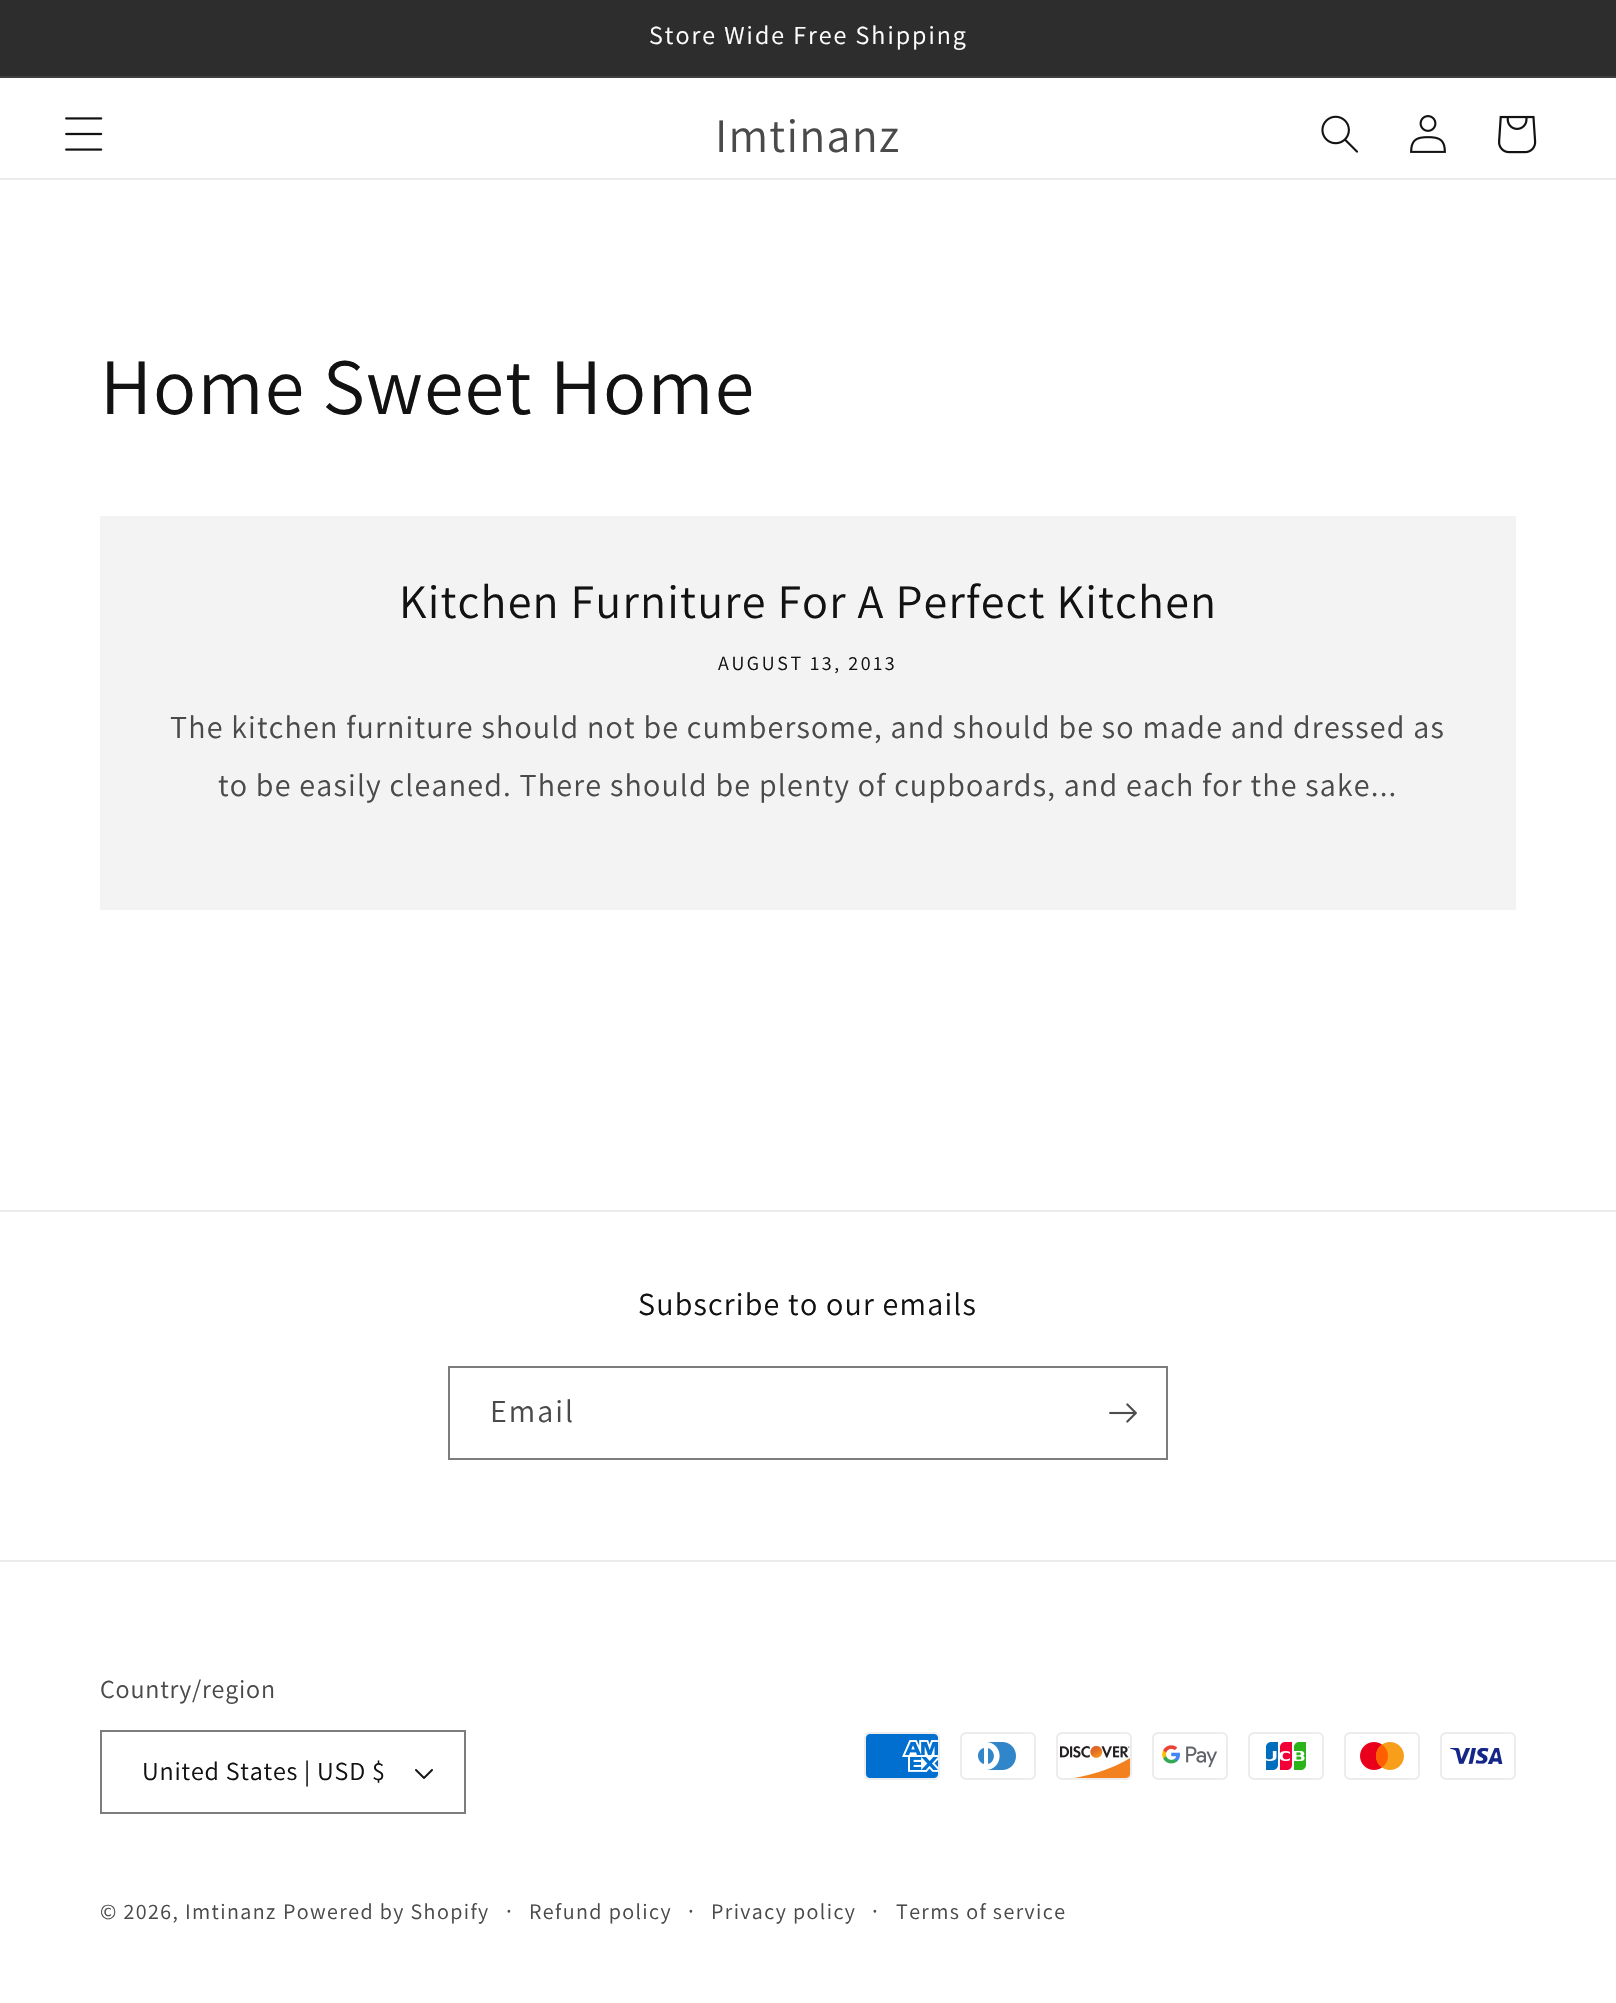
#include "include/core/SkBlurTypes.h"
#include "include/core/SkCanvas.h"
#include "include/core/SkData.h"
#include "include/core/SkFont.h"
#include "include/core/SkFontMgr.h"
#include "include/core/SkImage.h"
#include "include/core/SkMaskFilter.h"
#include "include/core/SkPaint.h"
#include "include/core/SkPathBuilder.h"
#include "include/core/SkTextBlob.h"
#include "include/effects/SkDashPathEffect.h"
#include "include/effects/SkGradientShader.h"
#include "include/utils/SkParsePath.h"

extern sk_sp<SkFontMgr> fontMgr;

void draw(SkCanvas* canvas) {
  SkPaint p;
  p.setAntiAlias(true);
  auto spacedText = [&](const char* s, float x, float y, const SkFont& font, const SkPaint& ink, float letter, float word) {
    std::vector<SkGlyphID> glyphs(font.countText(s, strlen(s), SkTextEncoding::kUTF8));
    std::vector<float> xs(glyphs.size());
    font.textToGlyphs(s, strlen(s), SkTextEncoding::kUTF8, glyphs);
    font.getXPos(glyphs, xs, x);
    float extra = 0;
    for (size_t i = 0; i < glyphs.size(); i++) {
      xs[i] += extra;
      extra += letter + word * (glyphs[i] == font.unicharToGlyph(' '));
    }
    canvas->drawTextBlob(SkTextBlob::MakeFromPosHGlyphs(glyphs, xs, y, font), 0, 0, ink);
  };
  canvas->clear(SK_ColorWHITE);
  p.setColor(SkColorSetRGB(45, 45, 45));
  canvas->drawRect(SkRect::MakeLTRB(0, 0, 1616, 76), p);
  p.setColor(SkColorSetRGB(62, 62, 62));
  canvas->drawRect(SkRect::MakeLTRB(0, 76, 1616, 78), p);
  p.setColor(SkColorSetRGB(236, 236, 236));
  canvas->drawRect(SkRect::MakeLTRB(0, 178, 1616, 180), p);
  canvas->drawImageRect(SkImages::DeferredFromEncodedData(SkData::MakeFromFileName("images/1.png")), SkRect::MakeLTRB(65, 117, 103, 151), SkSamplingOptions());
  canvas->drawImageRect(SkImages::DeferredFromEncodedData(SkData::MakeFromFileName("images/2.png")), SkRect::MakeLTRB(1321, 115, 1358, 153), SkSamplingOptions());
  canvas->drawImageRect(SkImages::DeferredFromEncodedData(SkData::MakeFromFileName("images/3.png")), SkRect::MakeLTRB(1410, 115, 1446, 153), SkSamplingOptions());
  canvas->drawImageRect(SkImages::DeferredFromEncodedData(SkData::MakeFromFileName("images/4.png")), SkRect::MakeLTRB(1498, 115, 1537, 154), SkSamplingOptions());
  p.setColor(SkColorSetRGB(243, 243, 243));
  canvas->drawRect(SkRect::MakeLTRB(100, 516, 1516, 910), p);
  p.setColor(SkColorSetRGB(236, 236, 236));
  canvas->drawRect(SkRect::MakeLTRB(0, 1210, 1616, 1212), p);
  p.setStyle(SkPaint::kStroke_Style);
  p.setStrokeWidth(2);
  p.setColor(SkColorSetRGB(125, 125, 125));
  canvas->drawRect(SkRect::MakeLTRB(449, 1367, 1167, 1459), p);
  canvas->drawImageRect(SkImages::DeferredFromEncodedData(SkData::MakeFromFileName("images/5.png")), SkRect::MakeLTRB(1109, 1403, 1137, 1423), SkSamplingOptions());
  p.setStyle(SkPaint::kFill_Style);
  p.setColor(SkColorSetRGB(236, 236, 236));
  canvas->drawRect(SkRect::MakeLTRB(0, 1560, 1616, 1562), p);
  canvas->drawImageRect(SkImages::DeferredFromEncodedData(SkData::MakeFromFileName("images/6.png")), SkRect::MakeLTRB(415, 1769, 433, 1779), SkSamplingOptions());
  p.setStyle(SkPaint::kStroke_Style);
  p.setColor(SkColorSetRGB(125, 125, 125));
  canvas->drawRect(SkRect::MakeLTRB(101, 1731, 465, 1813), p);
  canvas->drawImageRect(SkImages::DeferredFromEncodedData(SkData::MakeFromFileName("images/7.png")), SkRect::MakeLTRB(864, 1732, 940, 1780), SkSamplingOptions());
  canvas->drawImageRect(SkImages::DeferredFromEncodedData(SkData::MakeFromFileName("images/8.png")), SkRect::MakeLTRB(960, 1732, 1036, 1780), SkSamplingOptions());
  canvas->drawImageRect(SkImages::DeferredFromEncodedData(SkData::MakeFromFileName("images/9.png")), SkRect::MakeLTRB(1056, 1732, 1132, 1780), SkSamplingOptions());
  canvas->drawImageRect(SkImages::DeferredFromEncodedData(SkData::MakeFromFileName("images/10.png")), SkRect::MakeLTRB(1152, 1732, 1228, 1780), SkSamplingOptions());
  canvas->drawImageRect(SkImages::DeferredFromEncodedData(SkData::MakeFromFileName("images/11.png")), SkRect::MakeLTRB(1248, 1732, 1324, 1780), SkSamplingOptions());
  canvas->drawImageRect(SkImages::DeferredFromEncodedData(SkData::MakeFromFileName("images/12.png")), SkRect::MakeLTRB(1344, 1732, 1420, 1780), SkSamplingOptions());
  canvas->drawImageRect(SkImages::DeferredFromEncodedData(SkData::MakeFromFileName("images/13.png")), SkRect::MakeLTRB(1440, 1732, 1516, 1780), SkSamplingOptions());
  SkFont font1(fontMgr->matchFamilyStyle("Assistant", SkFontStyle::Normal()), 26);
  font1.setSubpixel(true);
  p.setStyle(SkPaint::kFill_Style);
  p.setColor(SK_ColorWHITE);
  spacedText("Store Wide Free Shipping", 649, 44, font1, p, 2, 0);
  SkFont font2(fontMgr->matchFamilyStyle("Assistant", SkFontStyle::Normal()), 48);
  font2.setSubpixel(true);
  p.setColor(SkColorSetRGB(74, 74, 74));
  spacedText("Imtinanz", 715, 152, font2, p, 1.2f, 0);
  SkFont font3(fontMgr->matchFamilyStyle("Assistant", SkFontStyle::Normal()), 80);
  font3.setSubpixel(true);
  p.setColor(SkColorSetRGB(18, 18, 18));
  spacedText("Home Sweet Home", 100, 414, font3, p, 1.2f, 0);
  spacedText("Kitchen Furniture For A Perfect Kitchen", 399, 618, font2, p, 1.2f, 0);
  SkFont font4(fontMgr->matchFamilyStyle("Assistant", SkFontStyle::Normal()), 20);
  font4.setSubpixel(true);
  spacedText("AUGUST 13, 2013", 718, 670, font4, p, 2.6f, 0);
  SkFont font5(fontMgr->matchFamilyStyle("Assistant", SkFontStyle::Normal()), 32);
  font5.setSubpixel(true);
  p.setColor(SkColorSetRGB(74, 74, 74));
  spacedText("The kitchen furniture should not be cumbersome, and should be so made and dressed as", 170, 738, font5, p, 1.2f, 0);
  spacedText("to be easily cleaned. There should be plenty of cupboards, and each for the sake...", 218, 796, font5, p, 1.2f, 0);
  p.setColor(SkColorSetRGB(18, 18, 18));
  spacedText("Subscribe to our emails", 638, 1315, font5, p, 1.2f, 0);
  p.setColor(SkColorSetRGB(74, 74, 74));
  spacedText("Email", 490, 1422, font5, p, 2, 0);
  spacedText("Country/region", 100, 1698, font1, p, 0.8f, 0);
  p.setColor(SkColorSetRGB(18, 18, 18));
  spacedText("United States | USD $", 142, 1780, font1, p, 0.8f, 0);
  SkFont font6(fontMgr->matchFamilyStyle("Assistant", SkFontStyle::Normal()), 22);
  font6.setSubpixel(true);
  p.setColor(SkColorSetRGB(74, 74, 74));
  spacedText("© 2026, Imtinanz", 100, 1919, font6, p, 1.4f, 0);
  spacedText("Powered by Shopify", 283, 1919, font6, p, 1.4f, 0);
  SkFont font7(fontMgr->matchFamilyStyle("Assistant", SkFontStyle::Normal()), 24);
  font7.setSubpixel(true);
  spacedText("·", 506, 1919, font7, p, 1.4f, 0);
  spacedText("Refund policy", 529, 1919, font6, p, 1.4f, 0);
  spacedText("·", 688, 1919, font7, p, 1.4f, 0);
  spacedText("Privacy policy", 711, 1919, font6, p, 1.4f, 0);
  spacedText("·", 872, 1919, font7, p, 1.4f, 0);
  spacedText("Terms of service", 896, 1919, font6, p, 1.4f, 0);
}
